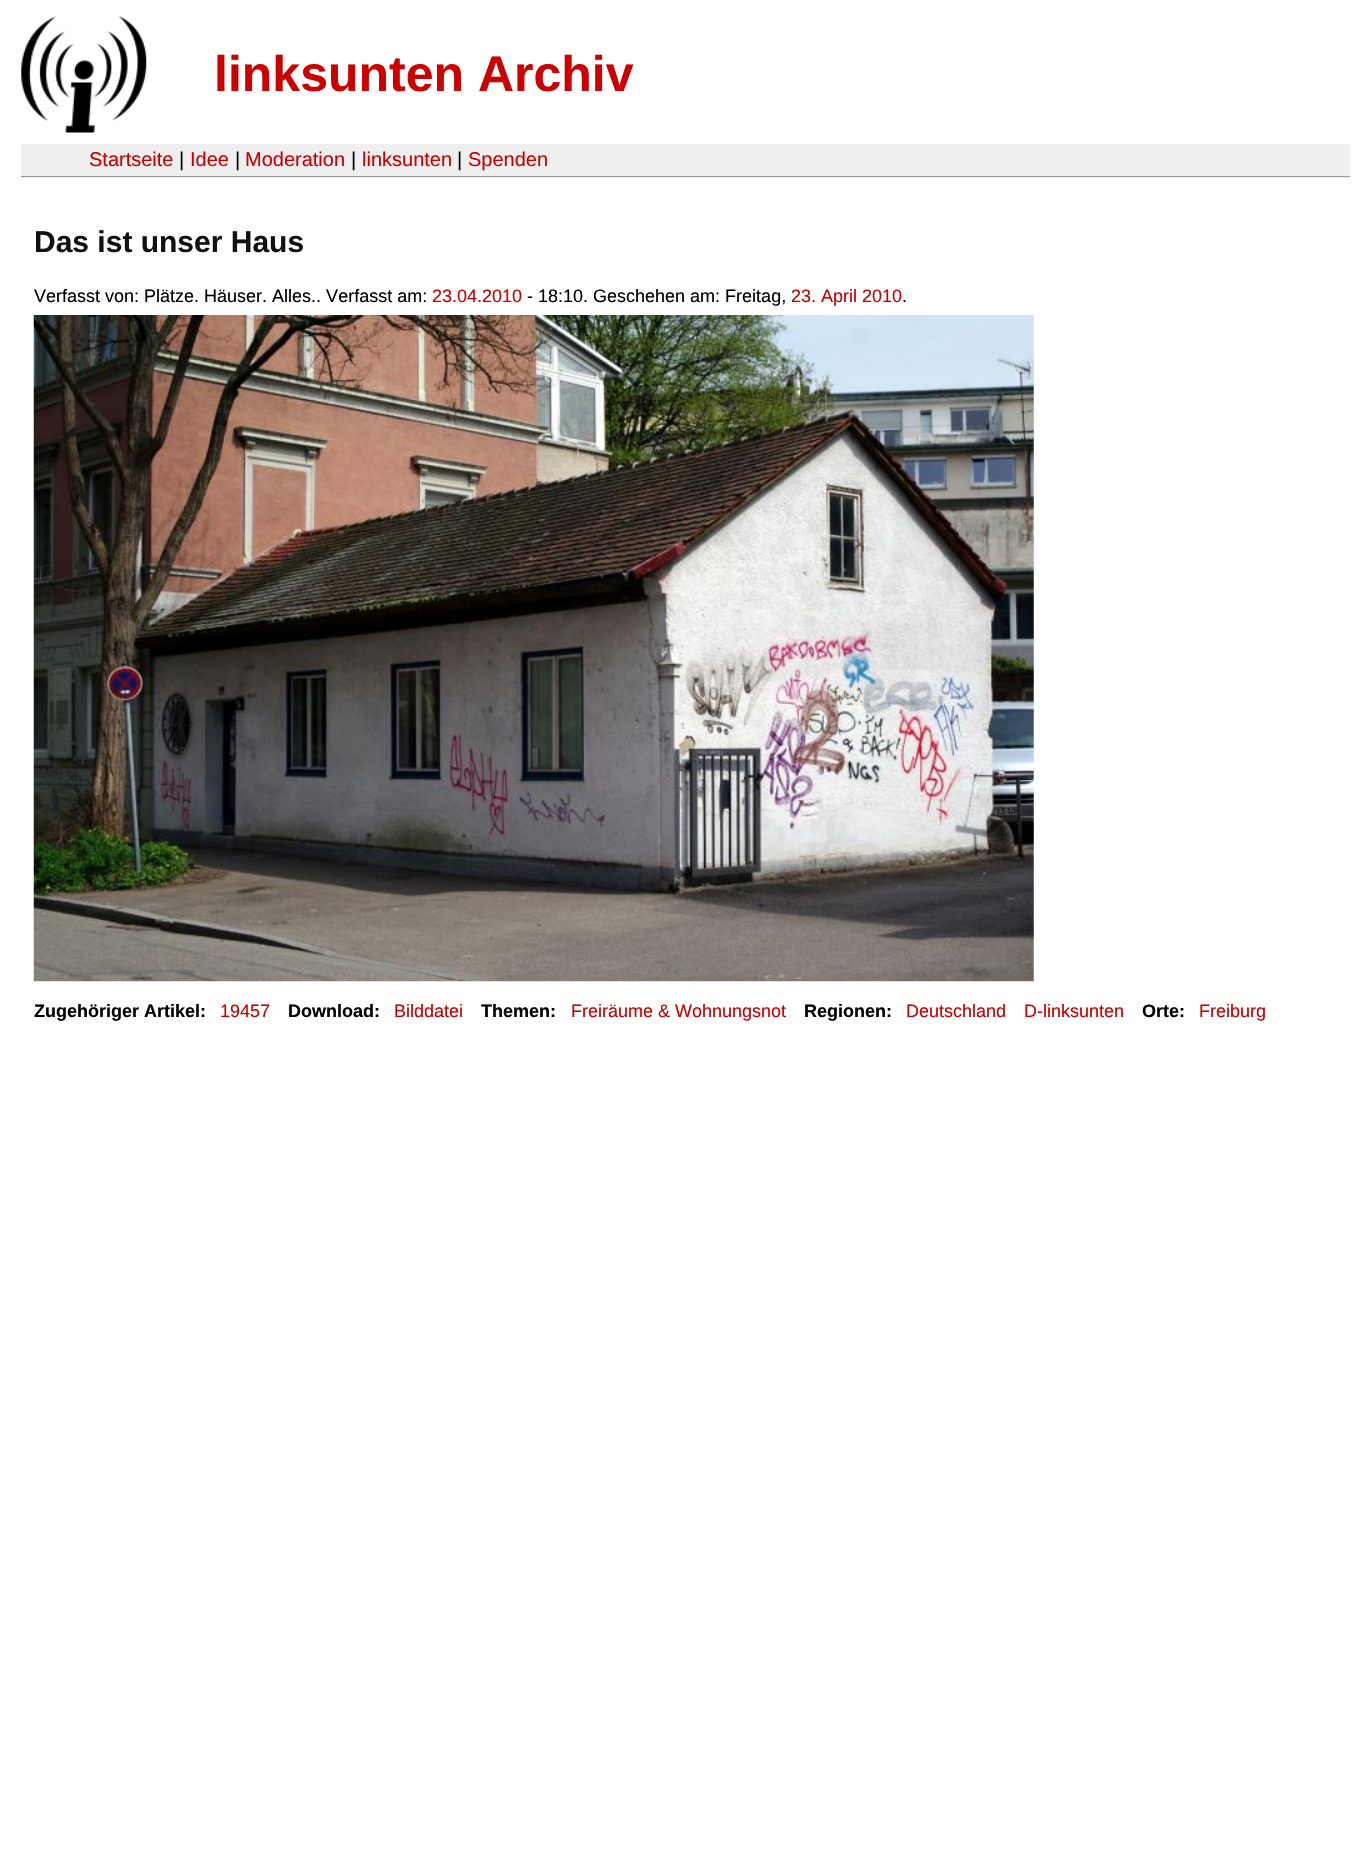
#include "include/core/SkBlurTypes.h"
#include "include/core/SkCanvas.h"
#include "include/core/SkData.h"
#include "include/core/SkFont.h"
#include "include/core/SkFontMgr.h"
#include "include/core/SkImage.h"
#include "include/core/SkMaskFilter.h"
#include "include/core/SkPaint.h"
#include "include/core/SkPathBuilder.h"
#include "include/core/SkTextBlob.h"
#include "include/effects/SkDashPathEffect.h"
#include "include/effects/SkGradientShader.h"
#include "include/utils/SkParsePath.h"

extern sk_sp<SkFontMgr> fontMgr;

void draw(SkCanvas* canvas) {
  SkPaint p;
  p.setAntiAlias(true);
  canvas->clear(SK_ColorWHITE);
  canvas->drawImageRect(SkImages::DeferredFromEncodedData(SkData::MakeFromFileName("images/1.png")), SkRect::MakeLTRB(21, 16, 147, 133), SkSamplingOptions());
  p.setColor(SkColorSetRGB(239, 239, 239));
  canvas->drawRect(SkRect::MakeLTRB(21, 144, 1350, 178), p);
  p.setColor(SkColorSetRGB(153, 153, 153));
  canvas->drawRect(SkRect::MakeLTRB(21, 176, 1350, 177), p);
  canvas->drawImageRect(SkImages::DeferredFromEncodedData(SkData::MakeFromFileName("images/2.png")), SkRect::MakeLTRB(33, 315, 1034, 982), SkSamplingOptions());
  SkFont font1(fontMgr->matchFamilyStyle("Liberation Sans", SkFontStyle::Bold()), 50);
  font1.setSubpixel(true);
  p.setColor(SkColorSetRGB(204, 0, 0));
  canvas->drawString("linksunten Archiv", 214, 91, font1, p);
  SkFont font2(fontMgr->matchFamilyStyle("Liberation Sans", SkFontStyle::Normal()), 20);
  font2.setSubpixel(true);
  canvas->drawString("Startseite", 89, 166, font2, p);
  p.setColor(SK_ColorBLACK);
  canvas->drawString("|", 179, 166, font2, p);
  p.setColor(SkColorSetRGB(204, 0, 0));
  canvas->drawString("Idee", 190, 166, font2, p);
  p.setColor(SK_ColorBLACK);
  canvas->drawString("|", 235, 166, font2, p);
  p.setColor(SkColorSetRGB(204, 0, 0));
  canvas->drawString("Moderation", 245, 166, font2, p);
  p.setColor(SK_ColorBLACK);
  canvas->drawString("|", 351, 166, font2, p);
  p.setColor(SkColorSetRGB(204, 0, 0));
  canvas->drawString("linksunten", 362, 166, font2, p);
  p.setColor(SK_ColorBLACK);
  canvas->drawString("|", 457, 166, font2, p);
  p.setColor(SkColorSetRGB(204, 0, 0));
  canvas->drawString("Spenden", 468, 166, font2, p);
  SkFont font3(fontMgr->matchFamilyStyle("Liberation Sans", SkFontStyle::Bold()), 30);
  font3.setSubpixel(true);
  p.setColor(SkColorSetRGB(17, 17, 17));
  canvas->drawString("Das ist unser Haus", 34, 252, font3, p);
  SkFont font4(fontMgr->matchFamilyStyle("Liberation Sans", SkFontStyle::Normal()), 18);
  font4.setSubpixel(true);
  p.setColor(SK_ColorBLACK);
  canvas->drawString("Verfasst von: Plätze. Häuser. Alles.. Verfasst am:", 34, 302, font4, p);
  p.setColor(SkColorSetRGB(204, 0, 0));
  canvas->drawString("23.04.2010", 432, 302, font4, p);
  p.setColor(SK_ColorBLACK);
  canvas->drawString("- 18:10. Geschehen am: Freitag,", 527, 302, font4, p);
  p.setColor(SkColorSetRGB(204, 0, 0));
  canvas->drawString("23. April 2010", 791, 302, font4, p);
  p.setColor(SK_ColorBLACK);
  canvas->drawString(".", 902, 302, font4, p);
  SkFont font5(fontMgr->matchFamilyStyle("Liberation Sans", SkFontStyle::Bold()), 18);
  font5.setSubpixel(true);
  canvas->drawString("Zugehöriger Artikel:", 34, 1017, font5, p);
  p.setColor(SkColorSetRGB(204, 0, 0));
  canvas->drawString("19457", 220, 1017, font4, p);
  p.setColor(SK_ColorBLACK);
  canvas->drawString("Download:", 288, 1017, font5, p);
  p.setColor(SkColorSetRGB(204, 0, 0));
  canvas->drawString("Bilddatei", 394, 1017, font4, p);
  p.setColor(SK_ColorBLACK);
  canvas->drawString("Themen:", 481, 1017, font5, p);
  p.setColor(SkColorSetRGB(204, 0, 0));
  canvas->drawString("Freiräume & Wohnungsnot", 571, 1017, font4, p);
  p.setColor(SK_ColorBLACK);
  canvas->drawString("Regionen:", 804, 1017, font5, p);
  p.setColor(SkColorSetRGB(204, 0, 0));
  canvas->drawString("Deutschland", 906, 1017, font4, p);
  canvas->drawString("D-linksunten", 1024, 1017, font4, p);
  p.setColor(SK_ColorBLACK);
  canvas->drawString("Orte:", 1142, 1017, font5, p);
  p.setColor(SkColorSetRGB(204, 0, 0));
  canvas->drawString("Freiburg", 1199, 1017, font4, p);
}
